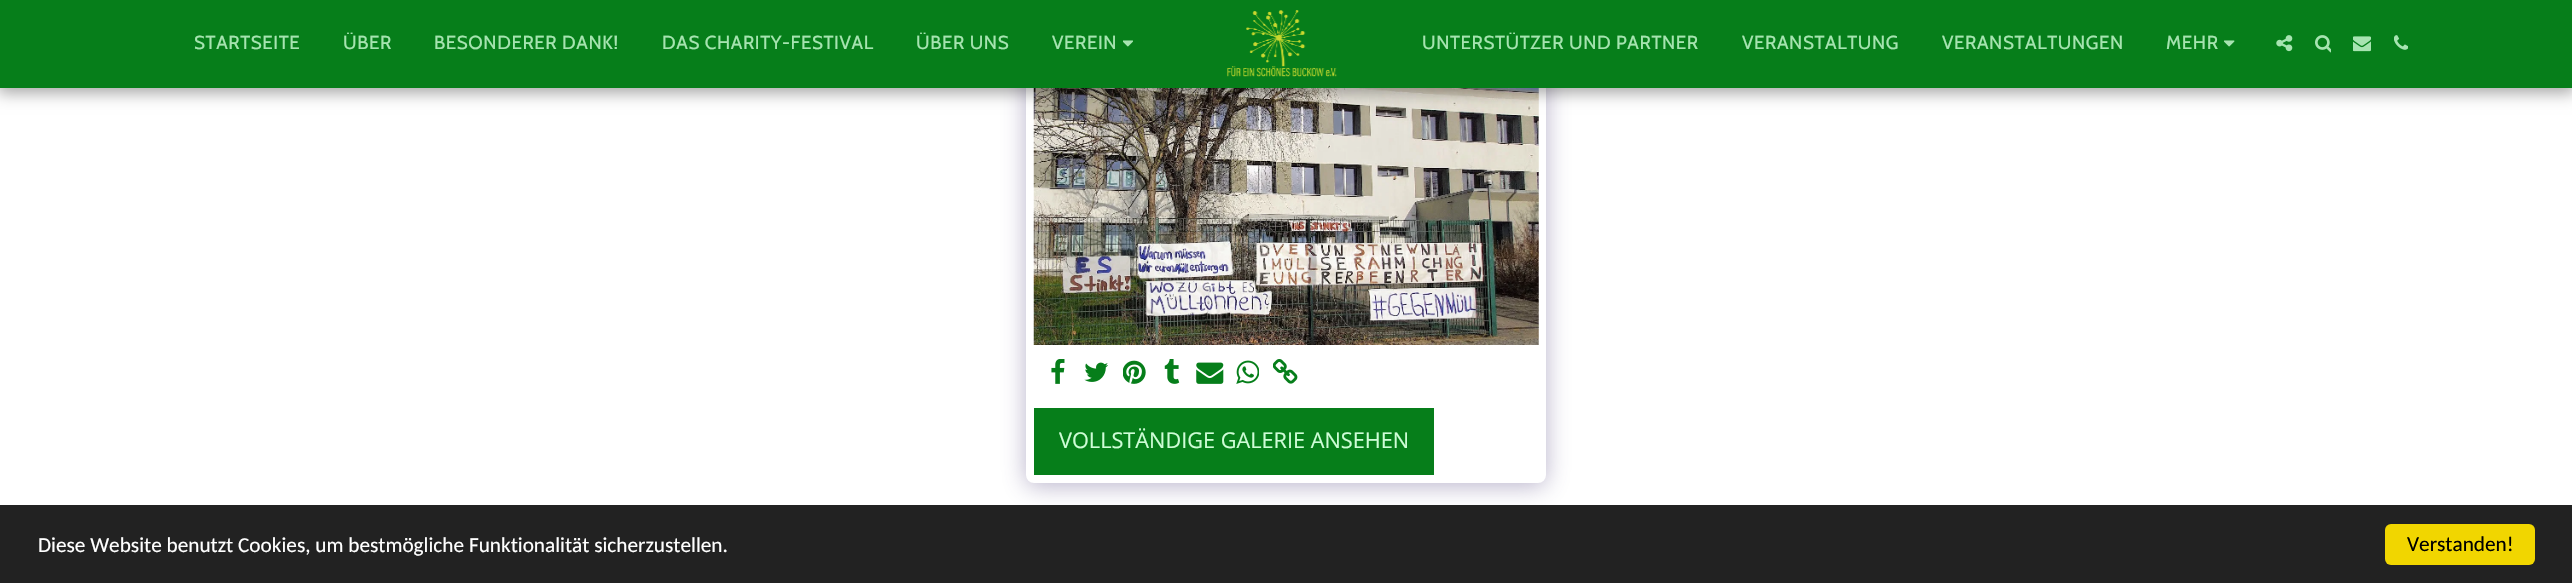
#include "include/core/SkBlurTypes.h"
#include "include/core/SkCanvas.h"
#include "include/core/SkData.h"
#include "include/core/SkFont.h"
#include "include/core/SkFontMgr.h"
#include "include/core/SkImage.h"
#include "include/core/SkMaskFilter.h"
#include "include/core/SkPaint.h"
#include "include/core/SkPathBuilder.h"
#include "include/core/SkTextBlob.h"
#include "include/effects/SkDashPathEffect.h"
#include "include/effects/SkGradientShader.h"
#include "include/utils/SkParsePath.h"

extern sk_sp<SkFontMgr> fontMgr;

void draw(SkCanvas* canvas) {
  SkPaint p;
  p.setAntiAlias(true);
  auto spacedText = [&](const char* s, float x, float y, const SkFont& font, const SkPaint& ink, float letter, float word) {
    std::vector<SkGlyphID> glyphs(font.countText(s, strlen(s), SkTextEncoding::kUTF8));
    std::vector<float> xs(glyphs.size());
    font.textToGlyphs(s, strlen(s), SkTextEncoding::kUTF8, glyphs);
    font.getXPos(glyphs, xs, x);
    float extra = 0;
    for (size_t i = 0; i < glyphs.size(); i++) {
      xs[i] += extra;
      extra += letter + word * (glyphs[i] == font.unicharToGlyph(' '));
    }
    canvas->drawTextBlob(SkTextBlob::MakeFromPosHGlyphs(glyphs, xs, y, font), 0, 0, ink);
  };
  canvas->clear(SK_ColorWHITE);
  p.setColor(SkColorSetARGB(102, 77, 63, 122));
  p.setMaskFilter(SkMaskFilter::MakeBlur(kNormal_SkBlurStyle, 12.5f));
  canvas->drawRoundRect(SkRect::MakeLTRB(1026, -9, 1546, 486), 8, 8, p);
  p.setMaskFilter(nullptr);
  p.setColor(SK_ColorWHITE);
  canvas->drawRoundRect(SkRect::MakeLTRB(1026, -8, 1546, 483), 8, 8, p);
  canvas->drawImageRect(SkImages::DeferredFromEncodedData(SkData::MakeFromFileName("images/8.png")), SkRect::MakeLTRB(1033, 88, 1539, 345), SkSamplingOptions());
  p.setColor(SkColorSetARGB(89, 0, 0, 0));
  p.setMaskFilter(SkMaskFilter::MakeBlur(kNormal_SkBlurStyle, 7.5f));
  canvas->drawRect(SkRect::MakeLTRB(-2, 0, 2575, 93), p);
  p.setMaskFilter(nullptr);
  p.setColor(SkColorSetRGB(6, 126, 26));
  canvas->drawRect(SkRect::MakeLTRB(0, 0, 2572, 88), p);
  canvas->drawImageRect(SkImages::DeferredFromEncodedData(SkData::MakeFromFileName("images/1.png")), SkRect::MakeLTRB(1123, 40, 1133, 47), SkSamplingOptions());
  canvas->drawImageRect(SkImages::DeferredFromEncodedData(SkData::MakeFromFileName("images/2.png")), SkRect::MakeLTRB(1227, 10, 1337, 77), SkSamplingOptions());
  canvas->drawImageRect(SkImages::DeferredFromEncodedData(SkData::MakeFromFileName("images/3.png")), SkRect::MakeLTRB(2224, 40, 2235, 47), SkSamplingOptions());
  canvas->drawImageRect(SkImages::DeferredFromEncodedData(SkData::MakeFromFileName("images/4.png")), SkRect::MakeLTRB(2276, 35, 2293, 52), SkSamplingOptions());
  canvas->drawImageRect(SkImages::DeferredFromEncodedData(SkData::MakeFromFileName("images/5.png")), SkRect::MakeLTRB(2315, 35, 2331, 53), SkSamplingOptions());
  canvas->drawImageRect(SkImages::DeferredFromEncodedData(SkData::MakeFromFileName("images/6.png")), SkRect::MakeLTRB(2353, 36, 2371, 52), SkSamplingOptions());
  canvas->drawImageRect(SkImages::DeferredFromEncodedData(SkData::MakeFromFileName("images/7.png")), SkRect::MakeLTRB(2394, 35, 2408, 50), SkSamplingOptions());
  canvas->drawImageRect(SkImages::DeferredFromEncodedData(SkData::MakeFromFileName("images/9.png")), SkRect::MakeLTRB(1051, 359, 1065, 384), SkSamplingOptions());
  canvas->drawImageRect(SkImages::DeferredFromEncodedData(SkData::MakeFromFileName("images/10.png")), SkRect::MakeLTRB(1084, 362, 1108, 382), SkSamplingOptions());
  canvas->drawImageRect(SkImages::DeferredFromEncodedData(SkData::MakeFromFileName("images/11.png")), SkRect::MakeLTRB(1123, 360, 1146, 384), SkSamplingOptions());
  canvas->drawImageRect(SkImages::DeferredFromEncodedData(SkData::MakeFromFileName("images/12.png")), SkRect::MakeLTRB(1164, 359, 1180, 384), SkSamplingOptions());
  canvas->drawImageRect(SkImages::DeferredFromEncodedData(SkData::MakeFromFileName("images/13.png")), SkRect::MakeLTRB(1196, 362, 1224, 384), SkSamplingOptions());
  canvas->drawImageRect(SkImages::DeferredFromEncodedData(SkData::MakeFromFileName("images/14.png")), SkRect::MakeLTRB(1236, 360, 1259, 384), SkSamplingOptions());
  canvas->drawImageRect(SkImages::DeferredFromEncodedData(SkData::MakeFromFileName("images/15.png")), SkRect::MakeLTRB(1273, 359, 1298, 384), SkSamplingOptions());
  canvas->drawRect(SkRect::MakeLTRB(1034, 408, 1434, 475), p);
  p.setColor(SkColorSetRGB(34, 34, 34));
  canvas->drawRect(SkRect::MakeLTRB(0, 505, 2572, 583), p);
  p.setColor(SkColorSetRGB(241, 214, 0));
  canvas->drawRoundRect(SkRect::MakeLTRB(2385, 524, 2535, 565), 6, 6, p);
  SkFont font1(fontMgr->matchFamilyStyle("Cabin", SkFontStyle::Normal()), 18.75f);
  font1.setSubpixel(true);
  p.setColor(SkColorSetRGB(166, 228, 176));
  spacedText("STARTSEITE", 194, 49, font1, p, 0.6f, 0);
  spacedText("ÜBER", 343, 49, font1, p, 0.6f, 0);
  spacedText("BESONDERER DANK!", 434, 49, font1, p, 0.6f, 0);
  spacedText("DAS CHARITY-FESTIVAL", 662, 49, font1, p, 0.6f, 0);
  spacedText("ÜBER UNS", 916, 49, font1, p, 0.6f, 0);
  spacedText("VEREIN", 1052, 49, font1, p, 0.6f, 0);
  spacedText("UNTERSTÜTZER UND PARTNER", 1422, 49, font1, p, 0.6f, 0);
  spacedText("VERANSTALTUNG", 1742, 49, font1, p, 0.6f, 0);
  spacedText("VERANSTALTUNGEN", 1942, 49, font1, p, 0.6f, 0);
  spacedText("MEHR", 2166, 49, font1, p, 0.6f, 0);
  SkFont font2(fontMgr->matchFamilyStyle("Open Sans", SkFontStyle::Normal()), 21.7f);
  font2.setSubpixel(true);
  p.setColor(SkColorSetRGB(206, 253, 214));
  canvas->drawString("VOLLSTÄNDIGE GALERIE ANSEHEN", 1059, 448, font2, p);
  SkFont font3(fontMgr->matchFamilyStyle("Carlito", SkFontStyle::Normal()), 21.25f);
  font3.setSubpixel(true);
  p.setColor(SK_ColorWHITE);
  canvas->drawString("Diese Website benutzt Cookies, um bestmögliche Funktionalität sicherzustellen.", 38, 552, font3, p);
  p.setColor(SK_ColorBLACK);
  canvas->drawString("Verstanden!", 2407, 551, font3, p);
}
